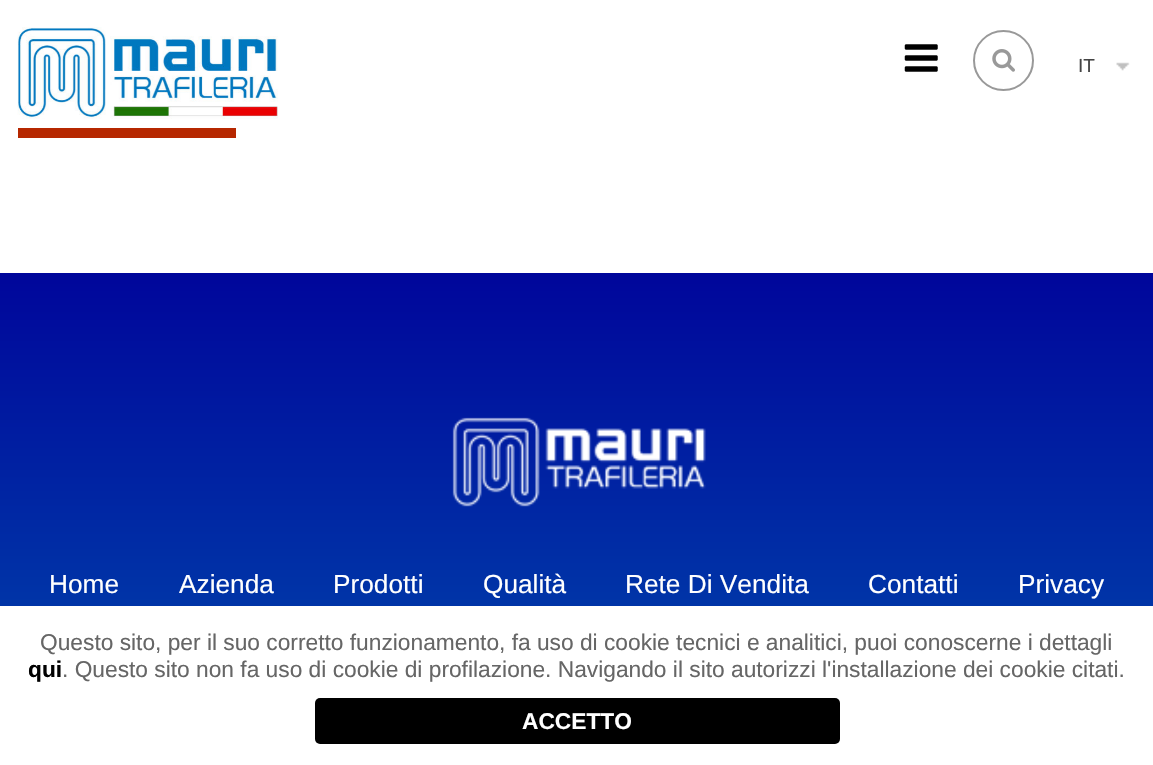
#include "include/core/SkBlurTypes.h"
#include "include/core/SkCanvas.h"
#include "include/core/SkData.h"
#include "include/core/SkFont.h"
#include "include/core/SkFontMgr.h"
#include "include/core/SkImage.h"
#include "include/core/SkMaskFilter.h"
#include "include/core/SkPaint.h"
#include "include/core/SkPathBuilder.h"
#include "include/core/SkTextBlob.h"
#include "include/effects/SkDashPathEffect.h"
#include "include/effects/SkGradientShader.h"
#include "include/utils/SkParsePath.h"

extern sk_sp<SkFontMgr> fontMgr;

void draw(SkCanvas* canvas) {
  SkPaint p;
  p.setAntiAlias(true);
  canvas->clear(SK_ColorWHITE);
  canvas->drawImageRect(SkImages::DeferredFromEncodedData(SkData::MakeFromFileName("images/1.png")), SkRect::MakeLTRB(17, 27, 278, 119), SkSamplingOptions());
  canvas->drawImageRect(SkImages::DeferredFromEncodedData(SkData::MakeFromFileName("images/2.png")), SkRect::MakeLTRB(904, 44, 938, 72), SkSamplingOptions());
  p.setStyle(SkPaint::kStroke_Style);
  p.setStrokeWidth(2);
  p.setColor(SkColorSetRGB(153, 153, 153));
  canvas->drawCircle(1003.5f, 60.5f, 29.5f, p);
  canvas->drawImageRect(SkImages::DeferredFromEncodedData(SkData::MakeFromFileName("images/3.png")), SkRect::MakeLTRB(992, 49, 1015, 72), SkSamplingOptions());
  canvas->drawImageRect(SkImages::DeferredFromEncodedData(SkData::MakeFromFileName("images/4.png")), SkRect::MakeLTRB(1116, 62, 1130, 71), SkSamplingOptions());
  p.setStyle(SkPaint::kFill_Style);
  p.setColor(SkColorSetRGB(182, 39, 0));
  canvas->drawRect(SkRect::MakeLTRB(18, 128, 236, 138), p);
  {
    const SkColor colors[] = {SkColorSetRGB(0, 6, 155), SkColorSetRGB(0, 105, 181)};
    const float stops[] = {0, 1};
    const SkPoint ends[] = {{577, 273}, {577, 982}};
    p.setShader(SkGradientShader::MakeLinear(ends, colors, stops, 2, SkTileMode::kClamp));
    p.setAlpha(255);
  }
  canvas->drawRect(SkRect::MakeLTRB(0, 273, 1153, 606), p);
  canvas->drawImageRect(SkImages::DeferredFromEncodedData(SkData::MakeFromFileName("images/5.png")), SkRect::MakeLTRB(452, 417, 706, 507), SkSamplingOptions());
  p.setShader(nullptr);
  p.setColor(SK_ColorBLACK);
  canvas->drawRoundRect(SkRect::MakeLTRB(315, 698, 840, 744), 5, 5, p);
  SkFont font1(fontMgr->matchFamilyStyle("Liberation Sans", SkFontStyle::Normal()), 19);
  font1.setSubpixel(true);
  p.setColor(SkColorSetRGB(68, 68, 68));
  canvas->drawString("IT", 1078, 72, font1, p);
  SkFont font2(fontMgr->matchFamilyStyle("Liberation Sans", SkFontStyle::Normal()), 26.25f);
  font2.setSubpixel(true);
  p.setColor(SK_ColorWHITE);
  canvas->drawString("Home", 49, 593, font2, p);
  canvas->drawString("Azienda", 179, 593, font2, p);
  canvas->drawString("Prodotti", 333, 593, font2, p);
  canvas->drawString("Qualità", 483, 593, font2, p);
  canvas->drawString("Rete Di Vendita", 625, 593, font2, p);
  canvas->drawString("Contatti", 868, 593, font2, p);
  canvas->drawString("Privacy", 1018, 593, font2, p);
  SkFont font3(fontMgr->matchFamilyStyle("Liberation Sans", SkFontStyle::Normal()), 22.75f);
  font3.setSubpixel(true);
  p.setColor(SkColorSetRGB(102, 102, 102));
  canvas->drawString("Questo sito, per il suo corretto funzionamento, fa uso di cookie tecnici e analitici, puoi conoscerne i dettagli", 40, 650, font3, p);
  SkFont font4(fontMgr->matchFamilyStyle("Liberation Sans", SkFontStyle::Bold()), 22.75f);
  font4.setSubpixel(true);
  p.setColor(SK_ColorBLACK);
  canvas->drawString("qui", 28, 677, font4, p);
  p.setColor(SkColorSetRGB(102, 102, 102));
  canvas->drawString(". Questo sito non fa uso di cookie di profilazione. Navigando il sito autorizzi l'installazione dei cookie citati.", 62, 677, font3, p);
  p.setColor(SK_ColorWHITE);
  canvas->drawString("ACCETTO", 522, 729, font4, p);
}
